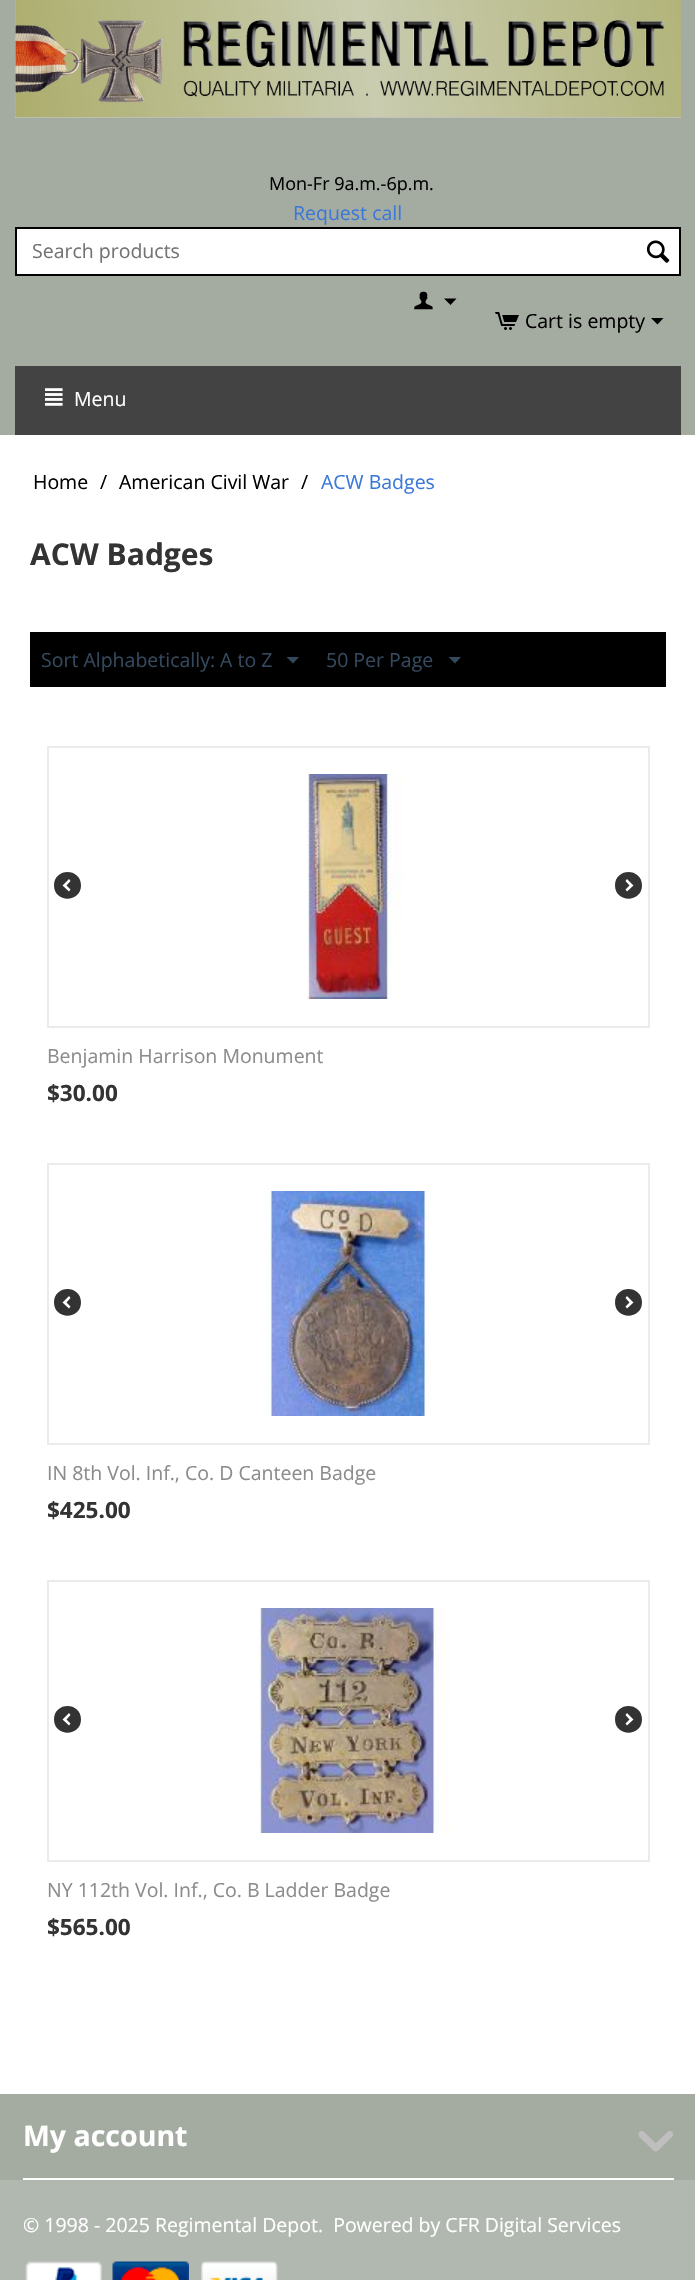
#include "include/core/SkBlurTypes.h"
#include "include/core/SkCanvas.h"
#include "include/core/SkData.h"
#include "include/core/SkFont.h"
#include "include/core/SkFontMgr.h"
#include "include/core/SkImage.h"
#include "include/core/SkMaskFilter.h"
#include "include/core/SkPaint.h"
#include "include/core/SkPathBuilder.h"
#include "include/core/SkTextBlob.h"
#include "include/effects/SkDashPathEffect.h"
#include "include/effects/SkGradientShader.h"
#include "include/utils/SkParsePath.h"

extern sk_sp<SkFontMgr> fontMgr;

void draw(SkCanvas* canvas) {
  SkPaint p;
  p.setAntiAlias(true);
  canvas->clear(SkColorSetRGB(164, 172, 161));
  canvas->drawImageRect(SkImages::DeferredFromEncodedData(SkData::MakeFromFileName("images/1.png")), SkRect::MakeLTRB(15, 0, 681, 118), SkSamplingOptions());
  p.setColor(SK_ColorWHITE);
  canvas->drawRect(SkRect::MakeLTRB(16, 228, 680, 275), p);
  p.setStyle(SkPaint::kStroke_Style);
  p.setStrokeWidth(2);
  p.setColor(SK_ColorBLACK);
  canvas->drawRect(SkRect::MakeLTRB(16, 228, 680, 275), p);
  canvas->drawImageRect(SkImages::DeferredFromEncodedData(SkData::MakeFromFileName("images/2.png")), SkRect::MakeLTRB(646, 240, 670, 263), SkSamplingOptions());
  canvas->drawImageRect(SkImages::DeferredFromEncodedData(SkData::MakeFromFileName("images/3.png")), SkRect::MakeLTRB(414, 291, 433, 310), SkSamplingOptions());
  p.setStyle(SkPaint::kFill_Style);
  canvas->drawPath(SkPathBuilder().moveTo(450.5f, 305).lineTo(444, 298.5f).lineTo(456.5f, 298.5f).close().detach(), p);
  canvas->drawImageRect(SkImages::DeferredFromEncodedData(SkData::MakeFromFileName("images/4.png")), SkRect::MakeLTRB(495, 312, 519, 330), SkSamplingOptions());
  canvas->drawPath(SkPathBuilder().moveTo(657.5f, 324.5f).lineTo(651, 318).lineTo(663.5f, 318).close().detach(), p);
  p.setColor(SkColorSetRGB(67, 67, 67));
  canvas->drawRect(SkRect::MakeLTRB(15, 366, 681, 435), p);
  canvas->drawImageRect(SkImages::DeferredFromEncodedData(SkData::MakeFromFileName("images/5.png")), SkRect::MakeLTRB(45, 388, 63, 406), SkSamplingOptions());
  p.setColor(SK_ColorWHITE);
  canvas->drawRect(SkRect::MakeLTRB(0, 435, 695, 2094), p);
  p.setColor(SK_ColorBLACK);
  canvas->drawRect(SkRect::MakeLTRB(30, 632, 666, 687), p);
  p.setColor(SkColorSetRGB(52, 73, 94));
  canvas->drawPath(SkPathBuilder().moveTo(293, 663.5f).lineTo(286.5f, 657).lineTo(299, 657).close().detach(), p);
  canvas->drawPath(SkPathBuilder().moveTo(455, 663.5f).lineTo(448.5f, 657).lineTo(461, 657).close().detach(), p);
  p.setStyle(SkPaint::kStroke_Style);
  p.setColor(SkColorSetRGB(235, 235, 235));
  canvas->drawRect(SkRect::MakeLTRB(48, 747, 649, 1027), p);
  canvas->drawImageRect(SkImages::DeferredFromEncodedData(SkData::MakeFromFileName("images/6.png")), SkRect::MakeLTRB(307, 774, 404, 999), SkSamplingOptions());
  p.setStyle(SkPaint::kFill_Style);
  p.setColor(SkColorSetRGB(51, 51, 51));
  canvas->drawPath(SkPathBuilder().moveTo(69, 891.5f).lineTo(70.5f, 889.5f).lineTo(66.5f, 885.5f).lineTo(70.5f, 881).lineTo(69, 879).lineTo(62.5f, 885.5f).close().moveTo(81, 885.5f).cubicTo(81, 903, 54, 903, 54, 885.5f).cubicTo(54, 867.5f, 81, 867.5f, 81, 885.5f).close().detach(), p);
  canvas->drawPath(SkPathBuilder().moveTo(627, 891.5f).lineTo(633.5f, 885.5f).lineTo(627, 879).lineTo(625.5f, 881).lineTo(629.5f, 885.5f).lineTo(625.5f, 889.5f).close().moveTo(642, 885.5f).cubicTo(642, 903, 615, 903, 615, 885.5f).cubicTo(615, 867.5f, 642, 867.5f, 642, 885.5f).close().detach(), p);
  p.setStyle(SkPaint::kStroke_Style);
  p.setColor(SkColorSetRGB(235, 235, 235));
  canvas->drawRect(SkRect::MakeLTRB(48, 1164, 649, 1444), p);
  canvas->drawImageRect(SkImages::DeferredFromEncodedData(SkData::MakeFromFileName("images/7.png")), SkRect::MakeLTRB(264, 1191, 428, 1416), SkSamplingOptions());
  p.setStyle(SkPaint::kFill_Style);
  p.setColor(SkColorSetRGB(51, 51, 51));
  canvas->drawPath(SkPathBuilder().moveTo(69, 1308.5f).lineTo(70.5f, 1306.5f).lineTo(66.5f, 1302.5f).lineTo(70.5f, 1298).lineTo(69, 1296).lineTo(62.5f, 1302.5f).close().moveTo(81, 1302.5f).cubicTo(81, 1320, 54, 1320, 54, 1302.5f).cubicTo(54, 1284.5f, 81, 1284.5f, 81, 1302.5f).close().detach(), p);
  canvas->drawPath(SkPathBuilder().moveTo(627, 1308.5f).lineTo(633.5f, 1302.5f).lineTo(627, 1296).lineTo(625.5f, 1298).lineTo(629.5f, 1302.5f).lineTo(625.5f, 1306.5f).close().moveTo(642, 1302.5f).cubicTo(642, 1320, 615, 1320, 615, 1302.5f).cubicTo(615, 1284.5f, 642, 1284.5f, 642, 1302.5f).close().detach(), p);
  p.setStyle(SkPaint::kStroke_Style);
  p.setColor(SkColorSetRGB(235, 235, 235));
  canvas->drawRect(SkRect::MakeLTRB(48, 1581, 649, 1861), p);
  canvas->drawImageRect(SkImages::DeferredFromEncodedData(SkData::MakeFromFileName("images/8.png")), SkRect::MakeLTRB(259, 1608, 452, 1833), SkSamplingOptions());
  p.setStyle(SkPaint::kFill_Style);
  p.setColor(SkColorSetRGB(51, 51, 51));
  canvas->drawPath(SkPathBuilder().moveTo(69, 1725.5f).lineTo(70.5f, 1723.5f).lineTo(66.5f, 1719.5f).lineTo(70.5f, 1715).lineTo(69, 1713).lineTo(62.5f, 1719.5f).close().moveTo(81, 1719.5f).cubicTo(81, 1737, 54, 1737, 54, 1719.5f).cubicTo(54, 1701.5f, 81, 1701.5f, 81, 1719.5f).close().detach(), p);
  canvas->drawPath(SkPathBuilder().moveTo(627, 1725.5f).lineTo(633.5f, 1719.5f).lineTo(627, 1713).lineTo(625.5f, 1715).lineTo(629.5f, 1719.5f).lineTo(625.5f, 1723.5f).close().moveTo(642, 1719.5f).cubicTo(642, 1737, 615, 1737, 615, 1719.5f).cubicTo(615, 1701.5f, 642, 1701.5f, 642, 1719.5f).close().detach(), p);
  p.setColor(SK_ColorWHITE);
  canvas->drawRect(SkRect::MakeLTRB(23, 2178, 674, 2180), p);
  canvas->drawImageRect(SkImages::DeferredFromEncodedData(SkData::MakeFromFileName("images/9.png")), SkRect::MakeLTRB(638, 2131, 674, 2152), SkSamplingOptions());
  p.setColor(SkColorSetRGB(177, 184, 175));
  canvas->drawRect(SkRect::MakeLTRB(0, 2180, 695, 2280), p);
  canvas->drawImageRect(SkImages::DeferredFromEncodedData(SkData::MakeFromFileName("images/10.png")), SkRect::MakeLTRB(25, 2261, 102, 2280), SkSamplingOptions());
  canvas->drawImageRect(SkImages::DeferredFromEncodedData(SkData::MakeFromFileName("images/11.png")), SkRect::MakeLTRB(112, 2261, 189, 2280), SkSamplingOptions());
  canvas->drawImageRect(SkImages::DeferredFromEncodedData(SkData::MakeFromFileName("images/12.png")), SkRect::MakeLTRB(201, 2261, 278, 2280), SkSamplingOptions());
  SkFont font1(fontMgr->matchFamilyStyle("Open Sans", SkFontStyle::Normal()), 18);
  font1.setSubpixel(true);
  p.setColor(SK_ColorBLACK);
  canvas->drawString("Mon-Fr 9a.m.-6p.m.", 269, 190, font1, p);
  SkFont font2(fontMgr->matchFamilyStyle("Open Sans", SkFontStyle::Normal()), 19.5f);
  font2.setSubpixel(true);
  p.setColor(SkColorSetRGB(60, 120, 216));
  canvas->drawString("Request call", 293, 220, font2, p);
  p.setColor(SkColorSetRGB(115, 115, 115));
  canvas->drawString("Search products", 32, 258, font2, p);
  p.setColor(SK_ColorBLACK);
  canvas->drawString("Cart is empty", 525, 328, font2, p);
  p.setColor(SK_ColorWHITE);
  canvas->drawString("Menu", 74, 406, font2, p);
  p.setColor(SK_ColorBLACK);
  canvas->drawString("Home", 33, 489, font2, p);
  canvas->drawString("/", 100, 489, font2, p);
  canvas->drawString("American Civil War", 119, 489, font2, p);
  canvas->drawString("/", 301, 489, font2, p);
  p.setColor(SkColorSetRGB(60, 120, 216));
  canvas->drawString("ACW Badges", 321, 489, font2, p);
  SkFont font3(fontMgr->matchFamilyStyle("Open Sans", SkFontStyle::Bold()), 30);
  font3.setSubpixel(true);
  p.setColor(SkColorSetRGB(51, 51, 51));
  canvas->drawString("ACW Badges", 30, 565, font3, p);
  p.setColor(SkColorSetRGB(52, 73, 94));
  canvas->drawString("Sort Alphabetically: A to Z", 41, 667, font2, p);
  canvas->drawString("50 Per Page", 326, 667, font2, p);
  p.setColor(SkColorSetRGB(140, 140, 140));
  canvas->drawString("Benjamin Harrison Monument", 47, 1063, font2, p);
  SkFont font4(fontMgr->matchFamilyStyle("Open Sans", SkFontStyle::Bold()), 22.5f);
  font4.setSubpixel(true);
  p.setColor(SkColorSetRGB(51, 51, 51));
  canvas->drawString("$30.00", 47, 1101, font4, p);
  p.setColor(SkColorSetRGB(140, 140, 140));
  canvas->drawString("IN 8th Vol. Inf., Co. D Canteen Badge", 47, 1480, font2, p);
  p.setColor(SkColorSetRGB(51, 51, 51));
  canvas->drawString("$425.00", 47, 1518, font4, p);
  p.setColor(SkColorSetRGB(140, 140, 140));
  canvas->drawString("NY 112th Vol. Inf., Co. B Ladder Badge", 47, 1897, font2, p);
  p.setColor(SkColorSetRGB(51, 51, 51));
  canvas->drawString("$565.00", 47, 1935, font4, p);
  SkFont font5(fontMgr->matchFamilyStyle("Open Sans", SkFontStyle::Bold()), 28.5f);
  font5.setSubpixel(true);
  p.setColor(SK_ColorWHITE);
  canvas->drawString("My account", 23, 2146, font5, p);
  canvas->drawString("© 1998 - 2025 Regimental Depot.  Powered by CFR Digital Services", 23, 2232, font2, p);
}
